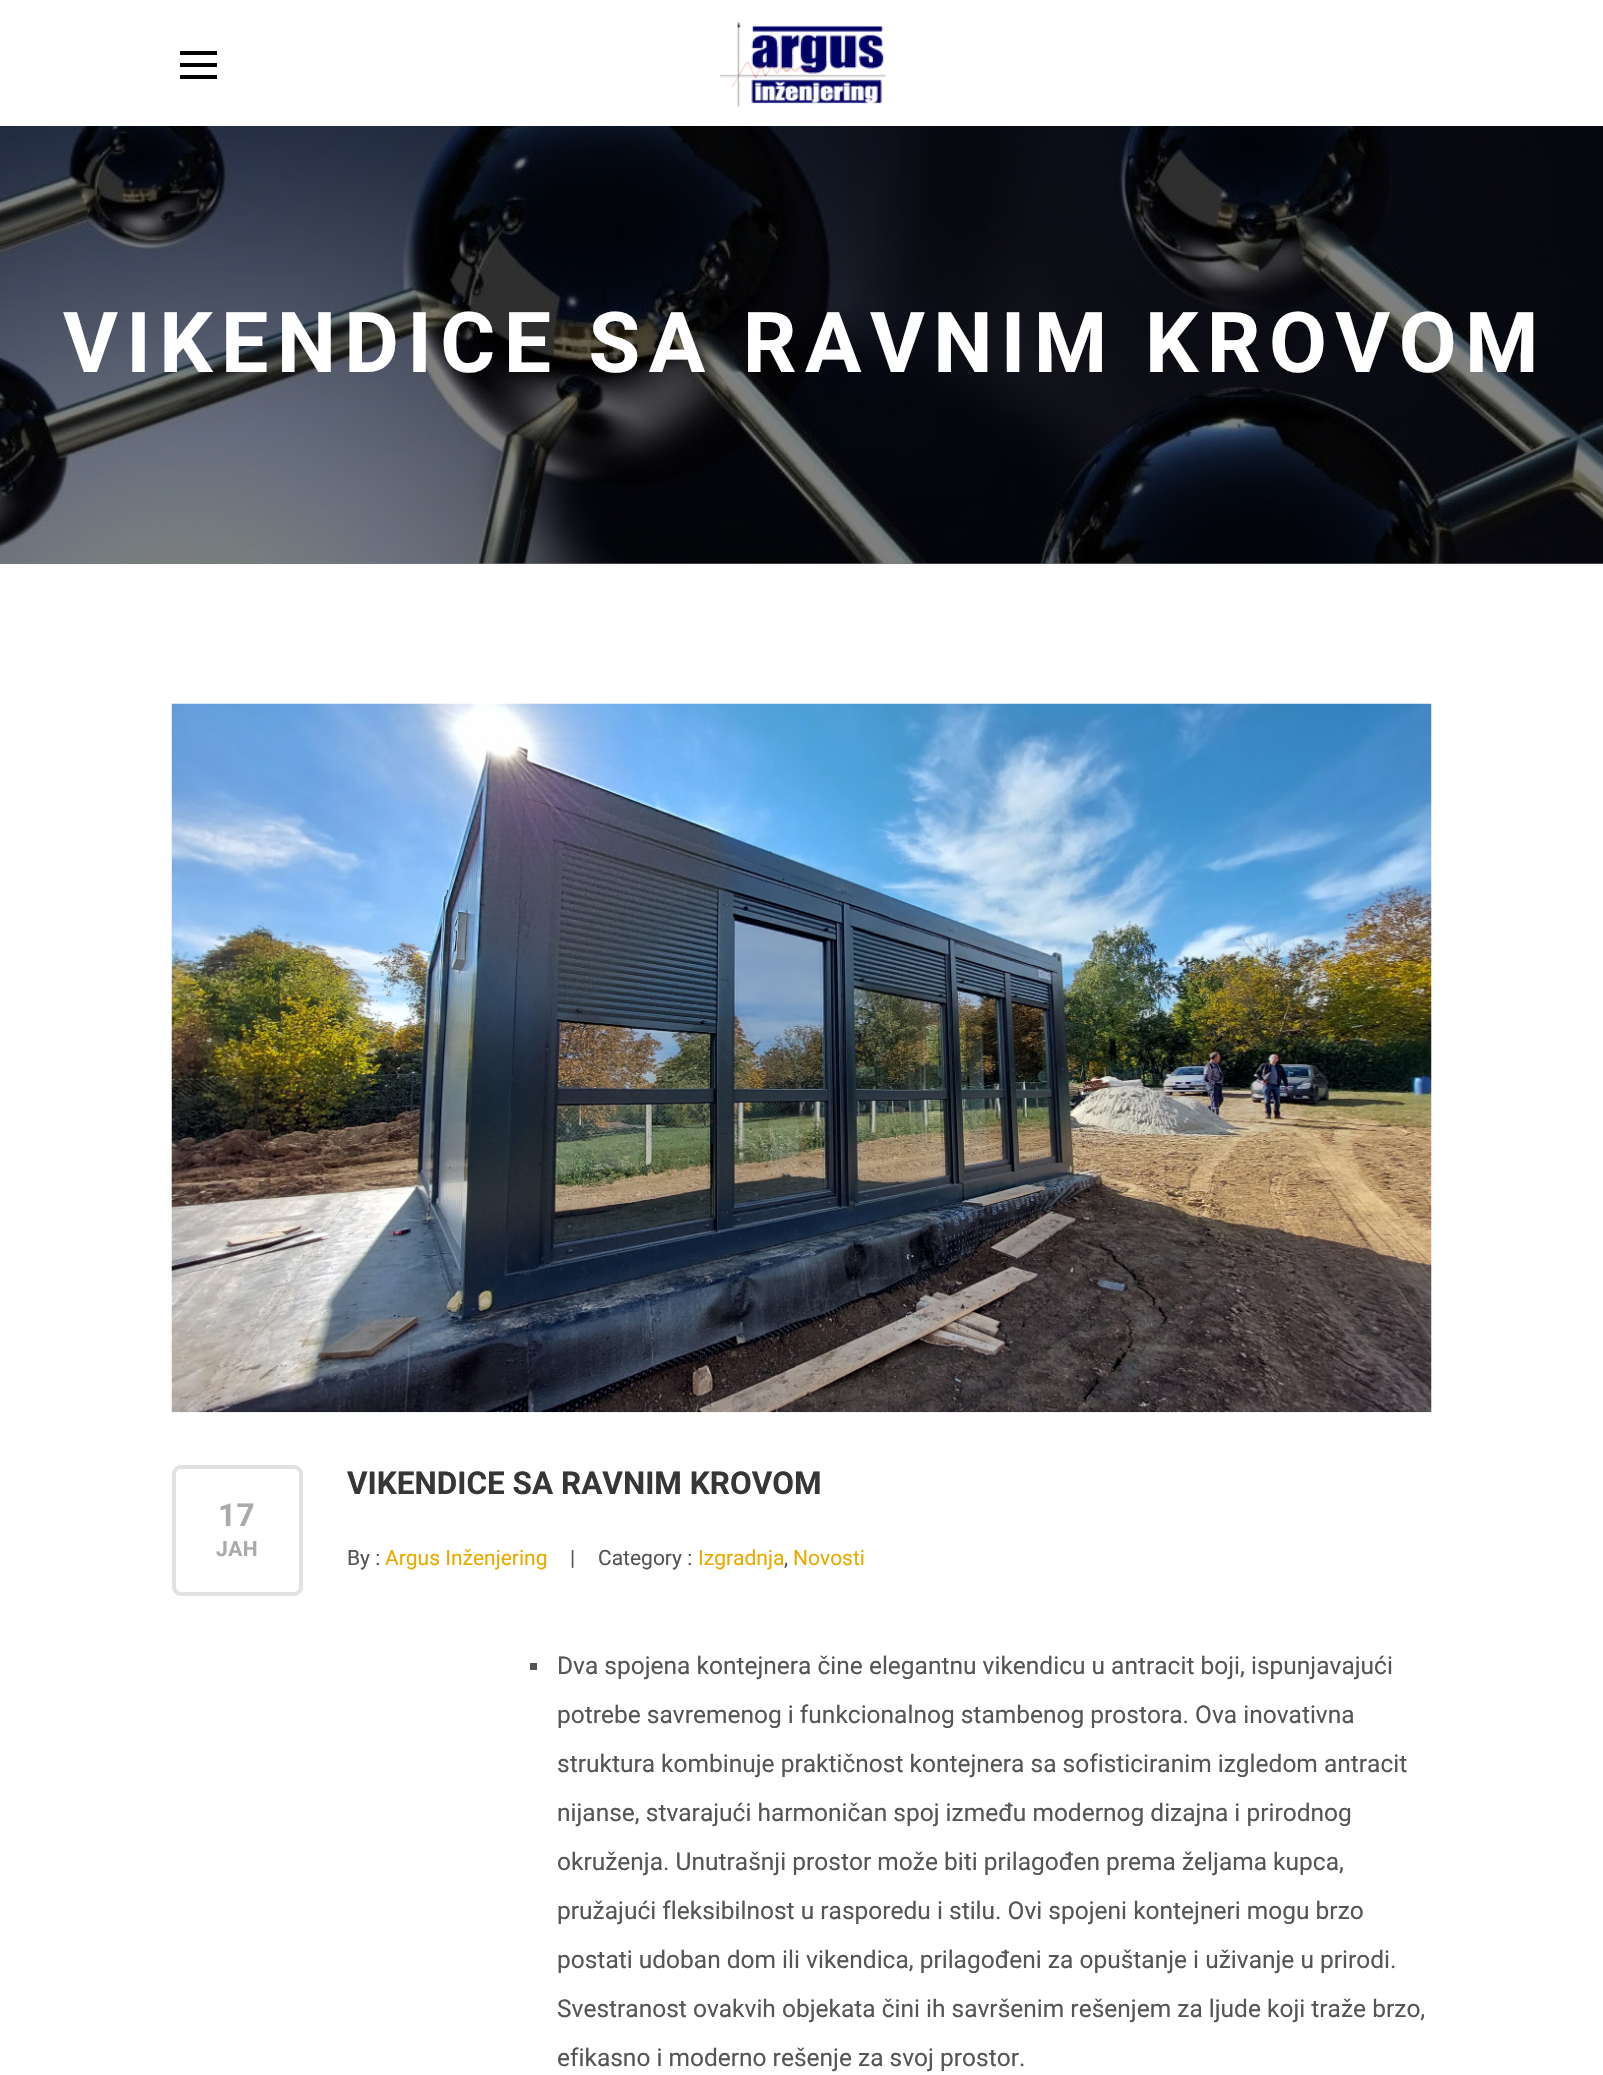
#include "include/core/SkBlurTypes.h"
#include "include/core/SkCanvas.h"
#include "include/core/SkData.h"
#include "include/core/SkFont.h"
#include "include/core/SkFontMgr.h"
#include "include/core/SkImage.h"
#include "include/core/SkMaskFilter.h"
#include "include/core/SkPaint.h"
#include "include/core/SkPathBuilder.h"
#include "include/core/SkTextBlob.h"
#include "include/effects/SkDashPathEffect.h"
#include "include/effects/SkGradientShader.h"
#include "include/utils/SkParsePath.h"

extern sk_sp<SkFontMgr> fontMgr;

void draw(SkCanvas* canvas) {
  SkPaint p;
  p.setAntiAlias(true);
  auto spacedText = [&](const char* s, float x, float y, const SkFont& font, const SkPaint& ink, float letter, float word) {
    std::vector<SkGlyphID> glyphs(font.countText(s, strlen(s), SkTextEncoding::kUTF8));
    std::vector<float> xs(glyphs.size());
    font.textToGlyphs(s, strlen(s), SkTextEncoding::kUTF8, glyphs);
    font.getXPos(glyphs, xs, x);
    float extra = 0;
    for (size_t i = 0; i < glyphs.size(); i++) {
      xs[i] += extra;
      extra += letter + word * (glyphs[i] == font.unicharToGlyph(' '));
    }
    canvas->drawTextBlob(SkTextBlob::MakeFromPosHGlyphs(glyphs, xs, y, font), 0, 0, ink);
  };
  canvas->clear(SK_ColorWHITE);
  p.setColor(SK_ColorBLACK);
  canvas->drawRect(SkRect::MakeLTRB(180, 63, 217, 67), p);
  canvas->drawRect(SkRect::MakeLTRB(180, 51, 217, 55), p);
  canvas->drawRect(SkRect::MakeLTRB(180, 75, 217, 79), p);
  canvas->drawImageRect(SkImages::DeferredFromEncodedData(SkData::MakeFromFileName("images/1.png")), SkRect::MakeLTRB(719, 21, 886, 107), SkSamplingOptions());
  canvas->drawImageRect(SkImages::DeferredFromEncodedData(SkData::MakeFromFileName("images/2.png")), SkRect::MakeLTRB(0, 126, 1603, 564), SkSamplingOptions());
  p.setColor(SkColorSetARGB(128, 0, 0, 0));
  canvas->drawRect(SkRect::MakeLTRB(0, 126, 1603, 564), p);
  canvas->drawImageRect(SkImages::DeferredFromEncodedData(SkData::MakeFromFileName("images/3.png")), SkRect::MakeLTRB(171, 703, 1432, 1413), SkSamplingOptions());
  p.setStyle(SkPaint::kStroke_Style);
  p.setStrokeWidth(4);
  p.setColor(SkColorSetRGB(225, 225, 225));
  canvas->drawRoundRect(SkRect::MakeLTRB(174, 1467, 301, 1594), 7, 7, p);
  p.setStyle(SkPaint::kFill_Style);
  p.setColor(SkColorSetRGB(85, 85, 85));
  canvas->drawRect(SkRect::MakeLTRB(530, 1663, 537, 1670), p);
  SkFont font1(fontMgr->matchFamilyStyle("Roboto", SkFontStyle::Bold()), 84);
  font1.setSubpixel(true);
  p.setColor(SK_ColorWHITE);
  spacedText("VIKENDICE SA RAVNIM KROVOM", 63, 372, font1, p, 8.4f, 0);
  SkFont font2(fontMgr->matchFamilyStyle("Roboto", SkFontStyle::Bold()), 31.5f);
  font2.setSubpixel(true);
  p.setColor(SkColorSetRGB(170, 170, 170));
  spacedText("17", 218, 1526, font2, p, 0.5f, 0);
  SkFont font3(fontMgr->matchFamilyStyle("Roboto", SkFontStyle::Bold()), 21);
  font3.setSubpixel(true);
  spacedText("ЈАН", 216, 1556, font3, p, 0.5f, 0);
  p.setColor(SkColorSetRGB(55, 54, 54));
  canvas->drawString("VIKENDICE SA RAVNIM KROVOM", 347, 1494, font2, p);
  SkFont font4(fontMgr->matchFamilyStyle("Roboto", SkFontStyle::Normal()), 21);
  font4.setSubpixel(true);
  p.setColor(SkColorSetRGB(85, 85, 85));
  canvas->drawString("By :", 347, 1565, font4, p);
  p.setColor(SkColorSetRGB(232, 170, 0));
  canvas->drawString("Argus Inženjering", 385, 1565, font4, p);
  p.setColor(SkColorSetRGB(85, 85, 85));
  canvas->drawString("|", 570, 1565, font4, p);
  canvas->drawString("Category :", 598, 1565, font4, p);
  p.setColor(SkColorSetRGB(232, 170, 0));
  canvas->drawString("Izgradnja", 698, 1565, font4, p);
  p.setColor(SkColorSetRGB(85, 85, 85));
  canvas->drawString(",", 784, 1565, font4, p);
  p.setColor(SkColorSetRGB(232, 170, 0));
  canvas->drawString("Novosti", 793, 1565, font4, p);
  SkFont font5(fontMgr->matchFamilyStyle("Roboto", SkFontStyle::Normal()), 24.5f);
  font5.setSubpixel(true);
  p.setColor(SkColorSetRGB(85, 85, 85));
  canvas->drawString("Dva spojena kontejnera čine elegantnu vikendicu u antracit boji, ispunjavajući", 557, 1674, font5, p);
  canvas->drawString("potrebe savremenog i funkcionalnog stambenog prostora. Ova inovativna", 557, 1723, font5, p);
  canvas->drawString("struktura kombinuje praktičnost kontejnera sa sofisticiranim izgledom antracit", 557, 1772, font5, p);
  canvas->drawString("nijanse, stvarajući harmoničan spoj između modernog dizajna i prirodnog", 557, 1821, font5, p);
  canvas->drawString("okruženja. Unutrašnji prostor može biti prilagođen prema željama kupca,", 557, 1870, font5, p);
  canvas->drawString("pružajući fleksibilnost u rasporedu i stilu. Ovi spojeni kontejneri mogu brzo", 557, 1919, font5, p);
  canvas->drawString("postati udoban dom ili vikendica, prilagođeni za opuštanje i uživanje u prirodi.", 557, 1968, font5, p);
  canvas->drawString("Svestranost ovakvih objekata čini ih savršenim rešenjem za ljude koji traže brzo,", 557, 2017, font5, p);
  canvas->drawString("efikasno i moderno rešenje za svoj prostor.", 557, 2066, font5, p);
}
